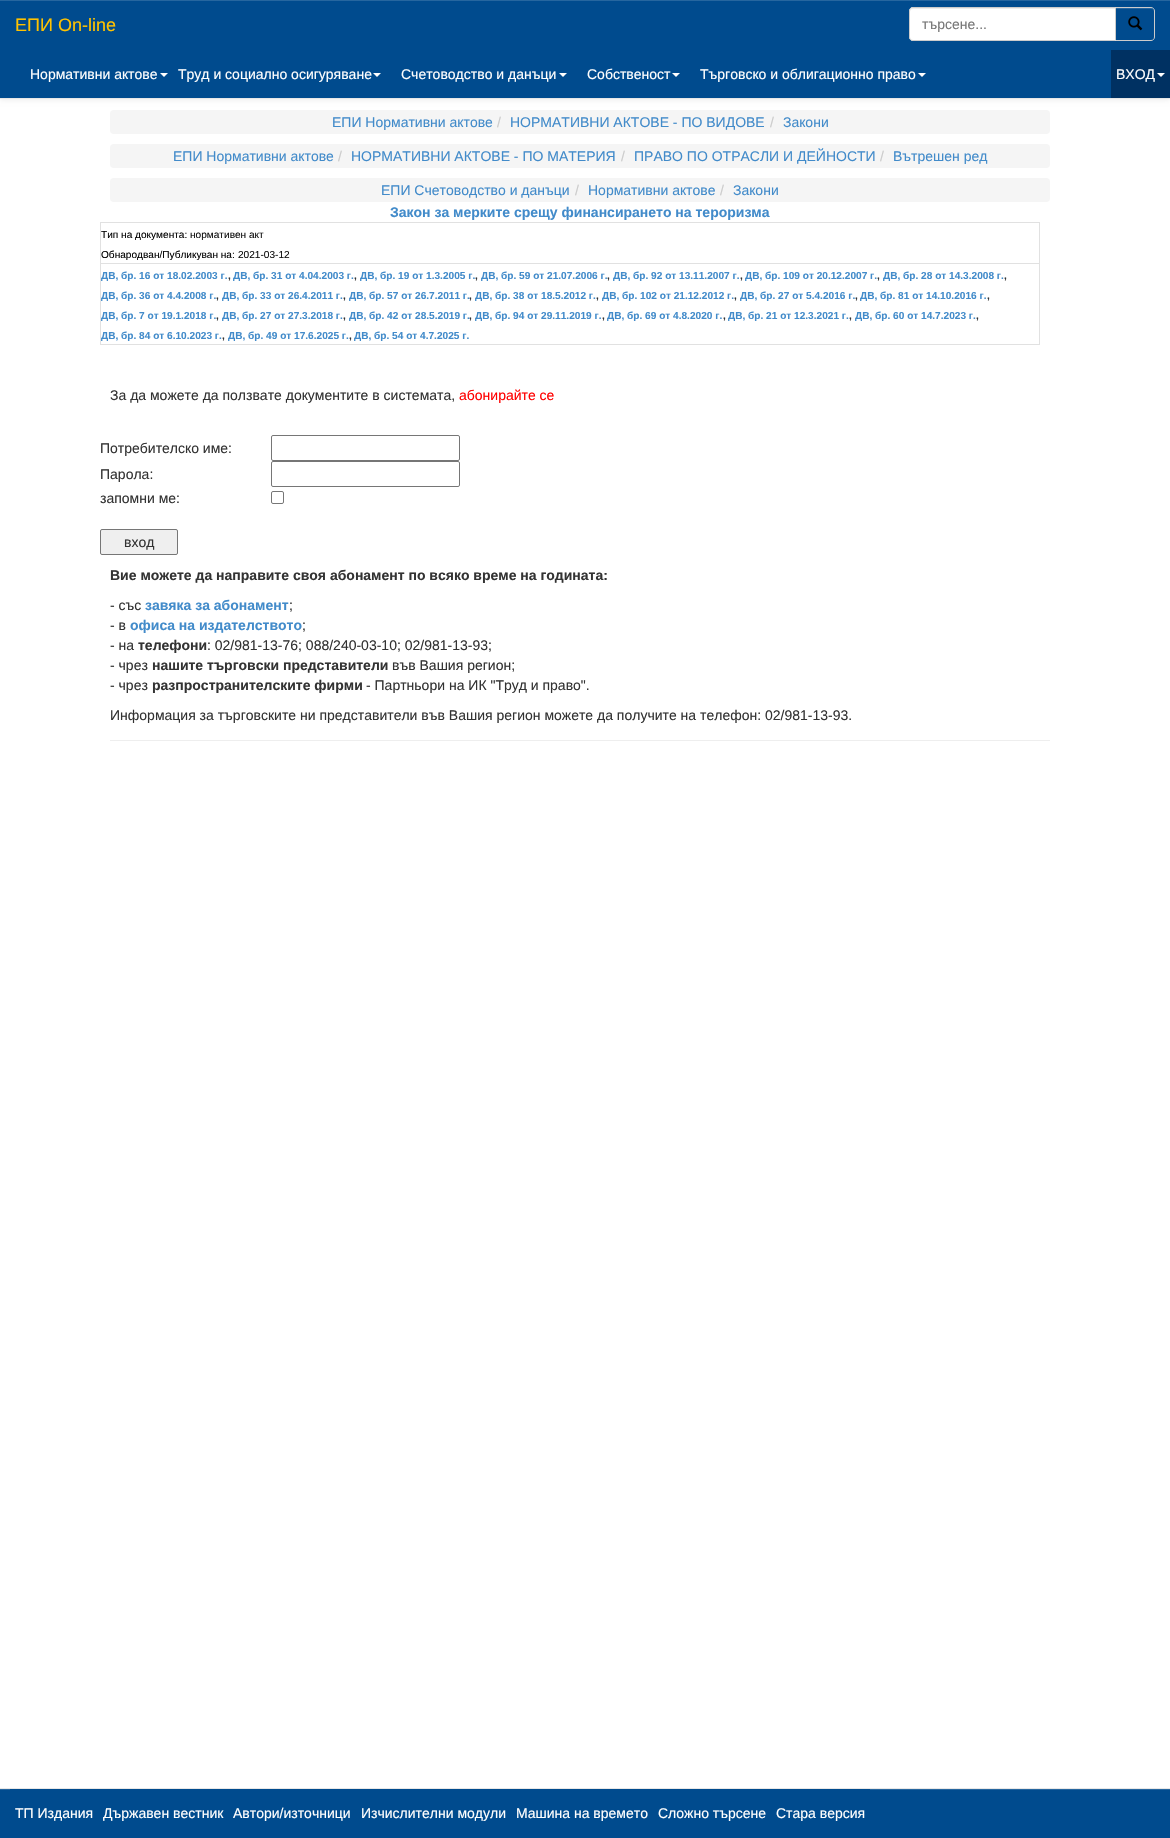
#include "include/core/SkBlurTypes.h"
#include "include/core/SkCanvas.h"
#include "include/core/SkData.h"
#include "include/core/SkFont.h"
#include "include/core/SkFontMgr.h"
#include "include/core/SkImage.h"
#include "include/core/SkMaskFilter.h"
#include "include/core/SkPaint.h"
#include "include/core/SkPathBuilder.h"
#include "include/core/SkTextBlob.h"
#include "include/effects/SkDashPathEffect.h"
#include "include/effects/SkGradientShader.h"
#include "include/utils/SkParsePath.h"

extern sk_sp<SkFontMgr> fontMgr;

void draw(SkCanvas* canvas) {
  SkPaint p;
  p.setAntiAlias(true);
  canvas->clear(SK_ColorWHITE);
  p.setColor(SkColorSetARGB(18, 0, 0, 0));
  p.setMaskFilter(SkMaskFilter::MakeBlur(kNormal_SkBlurStyle, 2.5f));
  canvas->drawRect(SkRect::MakeLTRB(0, 1, 1170, 100), p);
  p.setMaskFilter(nullptr);
  p.setColor(SkColorSetRGB(0, 75, 142));
  canvas->drawRect(SkRect::MakeLTRB(0, 1, 1170, 98), p);
  p.setColor(SkColorSetRGB(38, 102, 159));
  canvas->drawRect(SkRect::MakeLTRB(0, 0, 1170, 1), p);
  p.setColor(SkColorSetRGB(231, 231, 231));
  canvas->drawRect(SkRect::MakeLTRB(0, 98, 1170, 99), p);
  p.setColor(SkColorSetRGB(38, 102, 159));
  canvas->drawPath(SkPathBuilder().moveTo(1116, 9).lineTo(1151, 9).cubicTo(1153, 9, 1154, 10, 1154, 12).lineTo(1154, 11).cubicTo(1154, 9.5f, 1152.5f, 8, 1151, 8).lineTo(1116, 8).close().detach(), p);
  p.setStyle(SkPaint::kStroke_Style);
  p.setStrokeWidth(1);
  p.setColor(SkColorSetRGB(204, 204, 204));
  canvas->drawPath(SkPathBuilder().moveTo(1115.5f, 7.5f).lineTo(1151, 7.5f).cubicTo(1153, 7.5f, 1154.5f, 9, 1154.5f, 11).lineTo(1154.5f, 37).cubicTo(1154.5f, 39, 1153, 40.5f, 1151, 40.5f).lineTo(1115.5f, 40.5f).close().detach(), p);
  p.setStyle(SkPaint::kFill_Style);
  p.setColor(SK_ColorWHITE);
  canvas->drawPath(SkPathBuilder().moveTo(913, 7).lineTo(1116, 7).lineTo(1116, 41).lineTo(913, 41).cubicTo(911, 41, 909, 39, 909, 37).lineTo(909, 11).cubicTo(909, 9, 911, 7, 913, 7).close().detach(), p);
  p.setColor(SkColorSetRGB(236, 236, 236));
  canvas->drawPath(SkPathBuilder().moveTo(913, 9).lineTo(1115, 9).lineTo(1115, 8).lineTo(912, 8).cubicTo(910, 9, 910, 10, 910, 12).cubicTo(910, 10, 911, 9, 913, 9).close().detach(), p);
  p.setStyle(SkPaint::kStroke_Style);
  p.setColor(SkColorSetRGB(204, 204, 204));
  canvas->drawPath(SkPathBuilder().moveTo(913, 7.5f).lineTo(1115.5f, 7.5f).lineTo(1115.5f, 40.5f).lineTo(913, 40.5f).cubicTo(911, 40.5f, 909.5f, 39, 909.5f, 37).lineTo(909.5f, 11).cubicTo(909.5f, 9, 911, 7.5f, 913, 7.5f).close().detach(), p);
  canvas->drawImageRect(SkImages::DeferredFromEncodedData(SkData::MakeFromFileName("images/1.png")), SkRect::MakeLTRB(1128, 16, 1143, 31), SkSamplingOptions());
  p.setStyle(SkPaint::kFill_Style);
  p.setColor(SK_ColorWHITE);
  canvas->drawPath(SkPathBuilder().moveTo(160, 73).lineTo(168, 73).lineTo(164, 77).close().detach(), p);
  canvas->drawPath(SkPathBuilder().moveTo(373, 73).lineTo(381, 73).lineTo(377, 77).close().detach(), p);
  canvas->drawPath(SkPathBuilder().moveTo(559, 73).lineTo(567, 73).lineTo(563, 77).close().detach(), p);
  canvas->drawPath(SkPathBuilder().moveTo(672, 73).lineTo(680, 73).lineTo(676, 77).close().detach(), p);
  canvas->drawPath(SkPathBuilder().moveTo(918, 73).lineTo(926, 73).lineTo(922, 77).close().detach(), p);
  p.setColor(SkColorSetRGB(0, 49, 98));
  canvas->drawRect(SkRect::MakeLTRB(1111, 50, 1170, 98), p);
  p.setColor(SK_ColorWHITE);
  canvas->drawPath(SkPathBuilder().moveTo(1157, 73).lineTo(1165, 73).lineTo(1161, 77).close().detach(), p);
  p.setColor(SkColorSetRGB(245, 245, 245));
  canvas->drawRoundRect(SkRect::MakeLTRB(110, 110, 1050, 134), 4, 4, p);
  canvas->drawRoundRect(SkRect::MakeLTRB(110, 144, 1050, 168), 4, 4, p);
  canvas->drawRoundRect(SkRect::MakeLTRB(110, 178, 1050, 202), 4, 4, p);
  p.setColor(SkColorSetRGB(225, 225, 225));
  canvas->drawRect(SkRect::MakeLTRB(100, 222, 1040, 223), p);
  canvas->drawRect(SkRect::MakeLTRB(1039, 222, 1040, 345), p);
  canvas->drawRect(SkRect::MakeLTRB(100, 344, 1040, 345), p);
  canvas->drawRect(SkRect::MakeLTRB(100, 222, 101, 345), p);
  canvas->drawRect(SkRect::MakeLTRB(100, 263, 1040, 264), p);
  p.setStyle(SkPaint::kStroke_Style);
  p.setColor(SkColorSetRGB(118, 118, 118));
  canvas->drawRoundRect(SkRect::MakeLTRB(271.5f, 435.5f, 459.5f, 460.5f), 1.5f, 1.5f, p);
  canvas->drawRoundRect(SkRect::MakeLTRB(271.5f, 461.5f, 459.5f, 486.5f), 1.5f, 1.5f, p);
  canvas->drawRoundRect(SkRect::MakeLTRB(271.5f, 491.5f, 283.5f, 503.5f), 1.5f, 1.5f, p);
  p.setStyle(SkPaint::kFill_Style);
  p.setColor(SkColorSetRGB(239, 239, 239));
  canvas->drawRoundRect(SkRect::MakeLTRB(100.5f, 529.5f, 177.5f, 554.5f), 1.5f, 1.5f, p);
  p.setStyle(SkPaint::kStroke_Style);
  p.setColor(SkColorSetRGB(118, 118, 118));
  canvas->drawRoundRect(SkRect::MakeLTRB(100.5f, 529.5f, 177.5f, 554.5f), 1.5f, 1.5f, p);
  p.setStyle(SkPaint::kFill_Style);
  p.setColor(SkColorSetRGB(238, 238, 238));
  canvas->drawRect(SkRect::MakeLTRB(110, 740, 1050, 741), p);
  p.setColor(SkColorSetRGB(0, 75, 142));
  canvas->drawRect(SkRect::MakeLTRB(0, 1790, 1170, 1838), p);
  p.setColor(SkColorSetRGB(38, 102, 159));
  canvas->drawRect(SkRect::MakeLTRB(0, 1789, 1170, 1790), p);
  p.setColor(SkColorSetRGB(231, 231, 231));
  canvas->drawRect(SkRect::MakeLTRB(0, 1788, 1170, 1789), p);
  p.setColor(SkColorSetRGB(0, 75, 142));
  canvas->drawRect(SkRect::MakeLTRB(10, 1789, 870, 1790), p);
  SkFont font1(fontMgr->matchFamilyStyle("Liberation Sans", SkFontStyle::Normal()), 18);
  font1.setSubpixel(true);
  p.setColor(SkColorSetRGB(255, 194, 0));
  canvas->drawString("ЕПИ On-line", 15, 31, font1, p);
  SkFont font2(fontMgr->matchFamilyStyle("Liberation Sans", SkFontStyle::Normal()), 14);
  font2.setSubpixel(true);
  p.setColor(SkColorSetRGB(119, 119, 119));
  canvas->drawString("търсене...", 922, 29, font2, p);
  p.setColor(SK_ColorWHITE);
  canvas->drawString("Нормативни актове", 30, 79, font2, p);
  canvas->drawString("Труд и социално осигуряване", 178, 79, font2, p);
  canvas->drawString("Счетоводство и данъци", 401, 79, font2, p);
  canvas->drawString("Собственост", 587, 79, font2, p);
  canvas->drawString("Търговско и облигационно право", 700, 79, font2, p);
  canvas->drawString("ВХОД", 1116, 79, font2, p);
  p.setColor(SkColorSetRGB(66, 139, 202));
  canvas->drawString("ЕПИ Нормативни актове", 332, 127, font2, p);
  p.setColor(SkColorSetRGB(204, 204, 204));
  canvas->drawString("/", 497, 127, font2, p);
  p.setColor(SkColorSetRGB(66, 139, 202));
  canvas->drawString("НОРМАТИВНИ АКТОВЕ - ПО ВИДОВЕ", 510, 127, font2, p);
  p.setColor(SkColorSetRGB(204, 204, 204));
  canvas->drawString("/", 770, 127, font2, p);
  p.setColor(SkColorSetRGB(66, 139, 202));
  canvas->drawString("Закони", 783, 127, font2, p);
  canvas->drawString("ЕПИ Нормативни актове", 173, 161, font2, p);
  p.setColor(SkColorSetRGB(204, 204, 204));
  canvas->drawString("/", 338, 161, font2, p);
  p.setColor(SkColorSetRGB(66, 139, 202));
  canvas->drawString("НОРМАТИВНИ АКТОВЕ - ПО МАТЕРИЯ", 351, 161, font2, p);
  p.setColor(SkColorSetRGB(204, 204, 204));
  canvas->drawString("/", 621, 161, font2, p);
  p.setColor(SkColorSetRGB(66, 139, 202));
  canvas->drawString("ПРАВО ПО ОТРАСЛИ И ДЕЙНОСТИ", 634, 161, font2, p);
  p.setColor(SkColorSetRGB(204, 204, 204));
  canvas->drawString("/", 880, 161, font2, p);
  p.setColor(SkColorSetRGB(66, 139, 202));
  canvas->drawString("Вътрешен ред", 893, 161, font2, p);
  canvas->drawString("ЕПИ Счетоводство и данъци", 381, 195, font2, p);
  p.setColor(SkColorSetRGB(204, 204, 204));
  canvas->drawString("/", 575, 195, font2, p);
  p.setColor(SkColorSetRGB(66, 139, 202));
  canvas->drawString("Нормативни актове", 588, 195, font2, p);
  p.setColor(SkColorSetRGB(204, 204, 204));
  canvas->drawString("/", 720, 195, font2, p);
  p.setColor(SkColorSetRGB(66, 139, 202));
  canvas->drawString("Закони", 733, 195, font2, p);
  SkFont font3(fontMgr->matchFamilyStyle("Liberation Sans", SkFontStyle::Bold()), 14);
  font3.setSubpixel(true);
  canvas->drawString("Закон за мерките срещу финансирането на тероризма", 390, 217, font3, p);
  SkFont font4(fontMgr->matchFamilyStyle("Liberation Sans", SkFontStyle::Normal()), 10.1f);
  font4.setSubpixel(true);
  p.setColor(SkColorSetRGB(3, 3, 3));
  canvas->drawString("Тип на документа:", 101, 238, font4, p);
  p.setColor(SkColorSetRGB(15, 15, 15));
  canvas->drawString("нормативен акт", 190, 238, font4, p);
  p.setColor(SkColorSetRGB(3, 3, 3));
  canvas->drawString("Обнародван/Публикуван на:", 101, 258, font4, p);
  p.setColor(SkColorSetRGB(15, 15, 15));
  canvas->drawString("2021-03-12", 238, 258, font4, p);
  SkFont font5(fontMgr->matchFamilyStyle("Liberation Sans", SkFontStyle::Bold()), 10.1f);
  font5.setSubpixel(true);
  p.setColor(SkColorSetRGB(66, 139, 202));
  canvas->drawString("ДВ, бр. 16 от 18.02.2003 г.", 101, 279, font5, p);
  p.setColor(SkColorSetRGB(51, 51, 51));
  canvas->drawString(",", 228, 279, font5, p);
  p.setColor(SkColorSetRGB(66, 139, 202));
  canvas->drawString("ДВ, бр. 31 от 4.04.2003 г.", 233, 279, font5, p);
  p.setColor(SkColorSetRGB(51, 51, 51));
  canvas->drawString(",", 354, 279, font5, p);
  p.setColor(SkColorSetRGB(66, 139, 202));
  canvas->drawString("ДВ, бр. 19 от 1.3.2005 г.", 360, 279, font5, p);
  p.setColor(SkColorSetRGB(51, 51, 51));
  canvas->drawString(",", 475, 279, font5, p);
  p.setColor(SkColorSetRGB(66, 139, 202));
  canvas->drawString("ДВ, бр. 59 от 21.07.2006 г.", 481, 279, font5, p);
  p.setColor(SkColorSetRGB(51, 51, 51));
  canvas->drawString(",", 607, 279, font5, p);
  p.setColor(SkColorSetRGB(66, 139, 202));
  canvas->drawString("ДВ, бр. 92 от 13.11.2007 г.", 613, 279, font5, p);
  p.setColor(SkColorSetRGB(51, 51, 51));
  canvas->drawString(",", 740, 279, font5, p);
  p.setColor(SkColorSetRGB(66, 139, 202));
  canvas->drawString("ДВ, бр. 109 от 20.12.2007 г.", 745, 279, font5, p);
  p.setColor(SkColorSetRGB(51, 51, 51));
  canvas->drawString(",", 877, 279, font5, p);
  p.setColor(SkColorSetRGB(66, 139, 202));
  canvas->drawString("ДВ, бр. 28 от 14.3.2008 г.", 883, 279, font5, p);
  p.setColor(SkColorSetRGB(51, 51, 51));
  canvas->drawString(",", 1004, 279, font5, p);
  p.setColor(SkColorSetRGB(66, 139, 202));
  canvas->drawString("ДВ, бр. 36 от 4.4.2008 г.", 101, 299, font5, p);
  p.setColor(SkColorSetRGB(51, 51, 51));
  canvas->drawString(",", 216, 299, font5, p);
  p.setColor(SkColorSetRGB(66, 139, 202));
  canvas->drawString("ДВ, бр. 33 от 26.4.2011 г.", 222, 299, font5, p);
  p.setColor(SkColorSetRGB(51, 51, 51));
  canvas->drawString(",", 343, 299, font5, p);
  p.setColor(SkColorSetRGB(66, 139, 202));
  canvas->drawString("ДВ, бр. 57 от 26.7.2011 г.", 349, 299, font5, p);
  p.setColor(SkColorSetRGB(51, 51, 51));
  canvas->drawString(",", 469, 299, font5, p);
  p.setColor(SkColorSetRGB(66, 139, 202));
  canvas->drawString("ДВ, бр. 38 от 18.5.2012 г.", 475, 299, font5, p);
  p.setColor(SkColorSetRGB(51, 51, 51));
  canvas->drawString(",", 596, 299, font5, p);
  p.setColor(SkColorSetRGB(66, 139, 202));
  canvas->drawString("ДВ, бр. 102 от 21.12.2012 г.", 602, 299, font5, p);
  p.setColor(SkColorSetRGB(51, 51, 51));
  canvas->drawString(",", 734, 299, font5, p);
  p.setColor(SkColorSetRGB(66, 139, 202));
  canvas->drawString("ДВ, бр. 27 от 5.4.2016 г.", 740, 299, font5, p);
  p.setColor(SkColorSetRGB(51, 51, 51));
  canvas->drawString(",", 855, 299, font5, p);
  p.setColor(SkColorSetRGB(66, 139, 202));
  canvas->drawString("ДВ, бр. 81 от 14.10.2016 г.", 860, 299, font5, p);
  p.setColor(SkColorSetRGB(51, 51, 51));
  canvas->drawString(",", 987, 299, font5, p);
  p.setColor(SkColorSetRGB(66, 139, 202));
  canvas->drawString("ДВ, бр. 7 от 19.1.2018 г.", 101, 319, font5, p);
  p.setColor(SkColorSetRGB(51, 51, 51));
  canvas->drawString(",", 216, 319, font5, p);
  p.setColor(SkColorSetRGB(66, 139, 202));
  canvas->drawString("ДВ, бр. 27 от 27.3.2018 г.", 222, 319, font5, p);
  p.setColor(SkColorSetRGB(51, 51, 51));
  canvas->drawString(",", 343, 319, font5, p);
  p.setColor(SkColorSetRGB(66, 139, 202));
  canvas->drawString("ДВ, бр. 42 от 28.5.2019 г.", 349, 319, font5, p);
  p.setColor(SkColorSetRGB(51, 51, 51));
  canvas->drawString(",", 469, 319, font5, p);
  p.setColor(SkColorSetRGB(66, 139, 202));
  canvas->drawString("ДВ, бр. 94 от 29.11.2019 г.", 475, 319, font5, p);
  p.setColor(SkColorSetRGB(51, 51, 51));
  canvas->drawString(",", 602, 319, font5, p);
  p.setColor(SkColorSetRGB(66, 139, 202));
  canvas->drawString("ДВ, бр. 69 от 4.8.2020 г.", 607, 319, font5, p);
  p.setColor(SkColorSetRGB(51, 51, 51));
  canvas->drawString(",", 723, 319, font5, p);
  p.setColor(SkColorSetRGB(66, 139, 202));
  canvas->drawString("ДВ, бр. 21 от 12.3.2021 г.", 728, 319, font5, p);
  p.setColor(SkColorSetRGB(51, 51, 51));
  canvas->drawString(",", 849, 319, font5, p);
  p.setColor(SkColorSetRGB(66, 139, 202));
  canvas->drawString("ДВ, бр. 60 от 14.7.2023 г.", 855, 319, font5, p);
  p.setColor(SkColorSetRGB(51, 51, 51));
  canvas->drawString(",", 976, 319, font5, p);
  p.setColor(SkColorSetRGB(66, 139, 202));
  canvas->drawString("ДВ, бр. 84 от 6.10.2023 г.", 101, 339, font5, p);
  p.setColor(SkColorSetRGB(51, 51, 51));
  canvas->drawString(",", 222, 339, font5, p);
  p.setColor(SkColorSetRGB(66, 139, 202));
  canvas->drawString("ДВ, бр. 49 от 17.6.2025 г.", 228, 339, font5, p);
  p.setColor(SkColorSetRGB(51, 51, 51));
  canvas->drawString(",", 349, 339, font5, p);
  p.setColor(SkColorSetRGB(66, 139, 202));
  canvas->drawString("ДВ, бр. 54 от 4.7.2025 г.", 354, 339, font5, p);
  p.setColor(SkColorSetRGB(51, 51, 51));
  canvas->drawString("За да можете да ползвате документите в системата,", 110, 400, font2, p);
  p.setColor(SkColorSetRGB(255, 0, 0));
  canvas->drawString("абонирайте се", 459, 400, font2, p);
  p.setColor(SkColorSetRGB(51, 51, 51));
  canvas->drawString("Потребителско име:", 100, 453, font2, p);
  canvas->drawString("Парола:", 100, 479, font2, p);
  canvas->drawString("запомни ме:", 100, 503, font2, p);
  canvas->drawString("вход", 124, 547, font2, p);
  canvas->drawString("Вие можете да направите своя абонамент по всяко време на годината:", 110, 580, font3, p);
  canvas->drawString("- със", 110, 610, font2, p);
  p.setColor(SkColorSetRGB(66, 139, 202));
  canvas->drawString("завяка за абонамент", 145, 610, font3, p);
  p.setColor(SkColorSetRGB(51, 51, 51));
  canvas->drawString(";", 289, 610, font2, p);
  canvas->drawString("- в", 110, 630, font2, p);
  p.setColor(SkColorSetRGB(66, 139, 202));
  canvas->drawString("офиса на издателството", 130, 630, font3, p);
  p.setColor(SkColorSetRGB(51, 51, 51));
  canvas->drawString(";", 302, 630, font2, p);
  canvas->drawString("- на", 110, 650, font2, p);
  canvas->drawString("телефони", 138, 650, font3, p);
  canvas->drawString(": 02/981-13-76; 088/240-03-10; 02/981-13-93;", 207, 650, font2, p);
  canvas->drawString("- чрез", 110, 670, font2, p);
  canvas->drawString("нашите търговски представители", 152, 670, font3, p);
  canvas->drawString("във Вашия регион;", 392, 670, font2, p);
  canvas->drawString("- чрез", 110, 690, font2, p);
  canvas->drawString("разпространителските фирми", 152, 690, font3, p);
  canvas->drawString("- Партньори на ИК \"Труд и право\".", 366, 690, font2, p);
  canvas->drawString("Информация за търговските ни представители във Вашия регион можете да получите на телефон: 02/981-13-93.", 110, 720, font2, p);
  p.setColor(SK_ColorWHITE);
  canvas->drawString("ТП Издания", 15, 1818, font2, p);
  canvas->drawString("Държавен вестник", 103, 1818, font2, p);
  canvas->drawString("Автори/източници", 233, 1818, font2, p);
  canvas->drawString("Изчислителни модули", 361, 1818, font2, p);
  canvas->drawString("Машина на времето", 516, 1818, font2, p);
  canvas->drawString("Сложно търсене", 658, 1818, font2, p);
  canvas->drawString("Стара версия", 776, 1818, font2, p);
}
